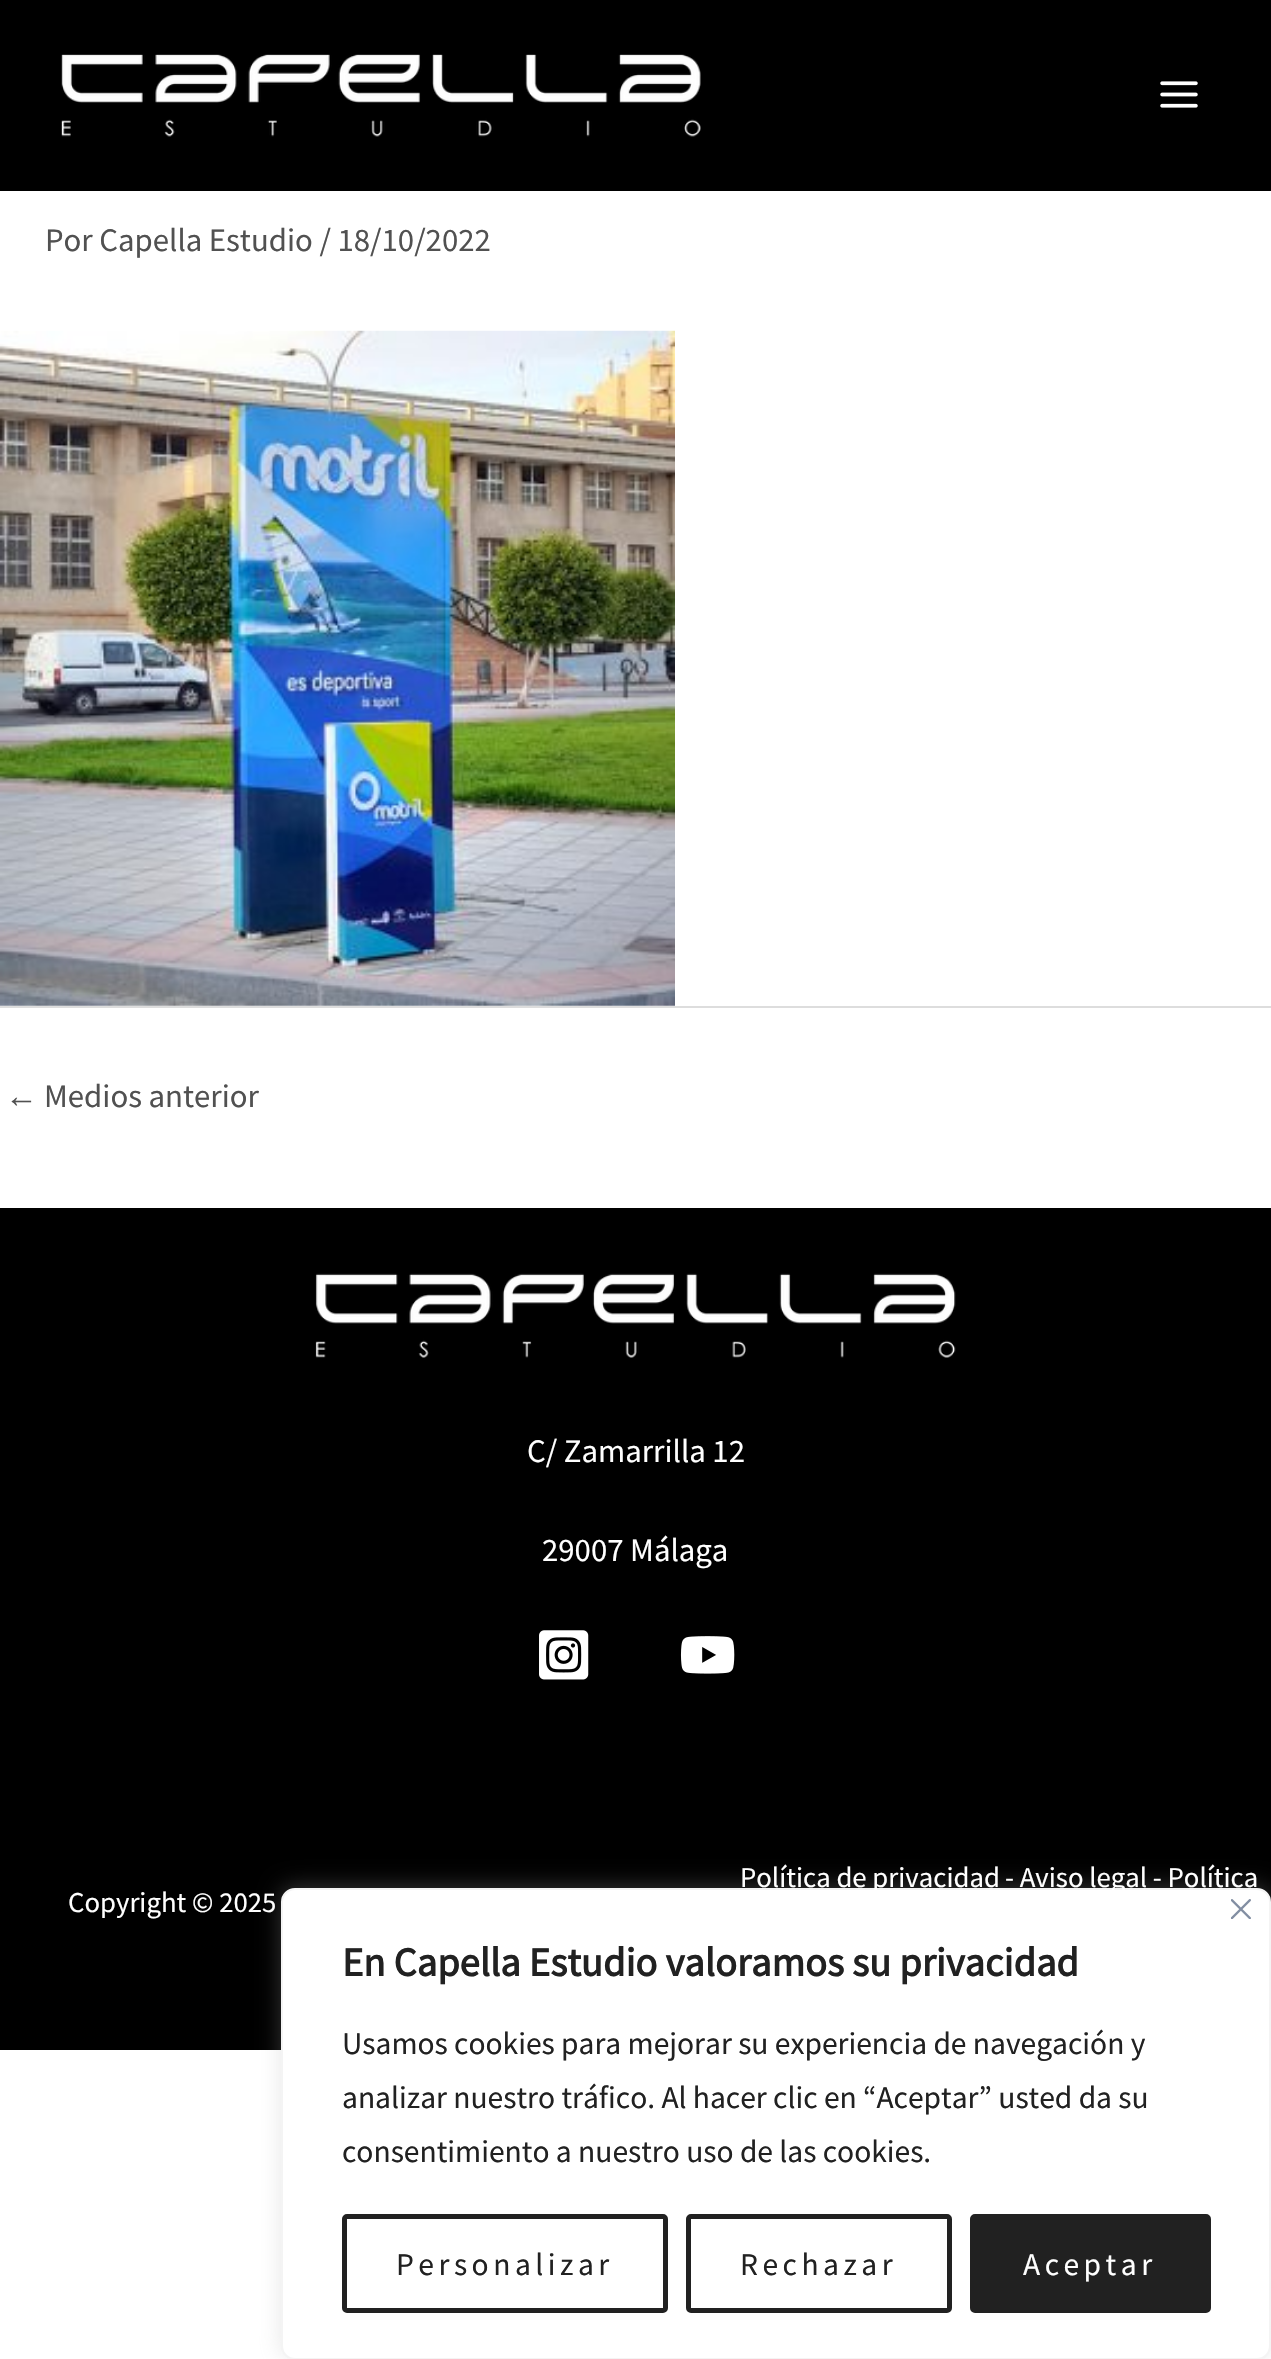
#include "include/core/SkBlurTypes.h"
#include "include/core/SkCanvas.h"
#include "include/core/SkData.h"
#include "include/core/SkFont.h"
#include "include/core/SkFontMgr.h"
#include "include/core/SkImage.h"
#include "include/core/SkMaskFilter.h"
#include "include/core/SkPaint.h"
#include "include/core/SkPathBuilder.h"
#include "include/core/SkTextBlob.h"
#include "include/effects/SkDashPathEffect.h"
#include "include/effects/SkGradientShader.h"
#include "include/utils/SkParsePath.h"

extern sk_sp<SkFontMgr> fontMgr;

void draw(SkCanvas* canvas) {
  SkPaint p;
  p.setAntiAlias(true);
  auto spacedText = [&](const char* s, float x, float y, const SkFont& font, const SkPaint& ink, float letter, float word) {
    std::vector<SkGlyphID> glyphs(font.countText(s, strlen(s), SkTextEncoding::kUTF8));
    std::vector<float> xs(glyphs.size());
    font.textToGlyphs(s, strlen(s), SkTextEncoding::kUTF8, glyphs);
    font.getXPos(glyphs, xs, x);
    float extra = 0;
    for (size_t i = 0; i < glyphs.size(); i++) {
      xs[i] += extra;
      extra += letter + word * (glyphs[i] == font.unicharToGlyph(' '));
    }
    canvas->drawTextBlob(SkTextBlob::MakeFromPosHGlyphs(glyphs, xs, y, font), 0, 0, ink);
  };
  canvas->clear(SK_ColorWHITE);
  p.setColor(SK_ColorBLACK);
  canvas->drawRect(SkRect::MakeLTRB(0, 0, 1271, 191), p);
  canvas->drawImageRect(SkImages::DeferredFromEncodedData(SkData::MakeFromFileName("images/1.png")), SkRect::MakeLTRB(61, 54, 701, 137), SkSamplingOptions());
  canvas->drawImageRect(SkImages::DeferredFromEncodedData(SkData::MakeFromFileName("images/2.png")), SkRect::MakeLTRB(1160, 81, 1198, 108), SkSamplingOptions());
  canvas->drawImageRect(SkImages::DeferredFromEncodedData(SkData::MakeFromFileName("images/3.png")), SkRect::MakeLTRB(0, 330, 675, 1006), SkSamplingOptions());
  p.setColor(SkColorSetRGB(221, 221, 221));
  canvas->drawRect(SkRect::MakeLTRB(0, 1006, 1271, 1008), p);
  p.setColor(SK_ColorBLACK);
  canvas->drawRect(SkRect::MakeLTRB(0, 1208, 1271, 2050), p);
  canvas->drawImageRect(SkImages::DeferredFromEncodedData(SkData::MakeFromFileName("images/4.png")), SkRect::MakeLTRB(315, 1273, 956, 1358), SkSamplingOptions());
  canvas->drawImageRect(SkImages::DeferredFromEncodedData(SkData::MakeFromFileName("images/5.png")), SkRect::MakeLTRB(539, 1630, 589, 1680), SkSamplingOptions());
  canvas->drawImageRect(SkImages::DeferredFromEncodedData(SkData::MakeFromFileName("images/6.png")), SkRect::MakeLTRB(680, 1636, 735, 1674), SkSamplingOptions());
  p.setColor(SkColorSetARGB(77, 172, 171, 171));
  p.setMaskFilter(SkMaskFilter::MakeBlur(kNormal_SkBlurStyle, 11));
  canvas->drawRoundRect(SkRect::MakeLTRB(281, 1886, 1271, 2358), 14, 14, p);
  p.setMaskFilter(nullptr);
  p.setColor(SK_ColorWHITE);
  canvas->drawRoundRect(SkRect::MakeLTRB(282, 1889, 1270, 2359), 13, 13, p);
  p.setStyle(SkPaint::kStroke_Style);
  p.setStrokeWidth(2);
  p.setColor(SkColorSetRGB(244, 244, 244));
  canvas->drawRoundRect(SkRect::MakeLTRB(282, 1889, 1270, 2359), 13, 13, p);
  canvas->drawImageRect(SkImages::DeferredFromEncodedData(SkData::MakeFromFileName("images/7.png")), SkRect::MakeLTRB(1231, 1899, 1251, 1919), SkSamplingOptions());
  p.setStrokeWidth(5);
  p.setColor(SkColorSetRGB(33, 33, 33));
  canvas->drawRoundRect(SkRect::MakeLTRB(344.5f, 2216.5f, 665.5f, 2310.5f), 2.5f, 2.5f, p);
  canvas->drawRoundRect(SkRect::MakeLTRB(688.5f, 2216.5f, 949.5f, 2310.5f), 2.5f, 2.5f, p);
  p.setStyle(SkPaint::kFill_Style);
  canvas->drawRoundRect(SkRect::MakeLTRB(972.5f, 2216.5f, 1208.5f, 2310.5f), 2.5f, 2.5f, p);
  p.setStyle(SkPaint::kStroke_Style);
  canvas->drawRoundRect(SkRect::MakeLTRB(972.5f, 2216.5f, 1208.5f, 2310.5f), 2.5f, 2.5f, p);
  SkFont font1(fontMgr->matchFamilyStyle("Source Sans Pro", SkFontStyle::Normal()), 32.8f);
  font1.setSubpixel(true);
  p.setStyle(SkPaint::kFill_Style);
  p.setColor(SkColorSetRGB(81, 81, 81));
  canvas->drawString("Por Capella Estudio / 18/10/2022", 45, 251, font1, p);
  SkFont font2(fontMgr->matchFamilyStyle("Liberation Sans", SkFontStyle::Normal()), 32.8f);
  font2.setSubpixel(true);
  canvas->drawString("←", 5, 1107, font2, p);
  canvas->drawString("Medios anterior", 44, 1107, font1, p);
  p.setColor(SK_ColorWHITE);
  canvas->drawString("C/ Zamarrilla 12", 527, 1462, font1, p);
  canvas->drawString("29007 Málaga", 542, 1561, font1, p);
  SkFont font3(fontMgr->matchFamilyStyle("Source Sans Pro", SkFontStyle::Normal()), 28.75f);
  font3.setSubpixel(true);
  canvas->drawString("Política de privacidad", 740, 1887, font3, p);
  canvas->drawString("- Aviso legal - Política", 1005, 1887, font3, p);
  canvas->drawString("Copyright © 2025", 68, 1912, font3, p);
  SkFont font4(fontMgr->matchFamilyStyle("Source Sans Pro", SkFontStyle::Bold()), 40.5f);
  font4.setSubpixel(true);
  p.setColor(SkColorSetRGB(33, 33, 33));
  canvas->drawString("En Capella Estudio valoramos su privacidad", 342, 1976, font4, p);
  SkFont font5(fontMgr->matchFamilyStyle("Source Sans Pro", SkFontStyle::Normal()), 31.5f);
  font5.setSubpixel(true);
  canvas->drawString("Usamos cookies para mejorar su experiencia de navegación y", 342, 2054, font5, p);
  canvas->drawString("analizar nuestro tráfico. Al hacer clic en “Aceptar” usted da su", 342, 2108, font5, p);
  canvas->drawString("consentimiento a nuestro uso de las cookies.", 342, 2162, font5, p);
  spacedText("Personalizar", 396, 2275, font5, p, 4.5f, 0);
  spacedText("Rechazar", 740, 2275, font5, p, 4.5f, 0);
  p.setColor(SK_ColorWHITE);
  spacedText("Aceptar", 1023, 2275, font5, p, 4.5f, 0);
}
